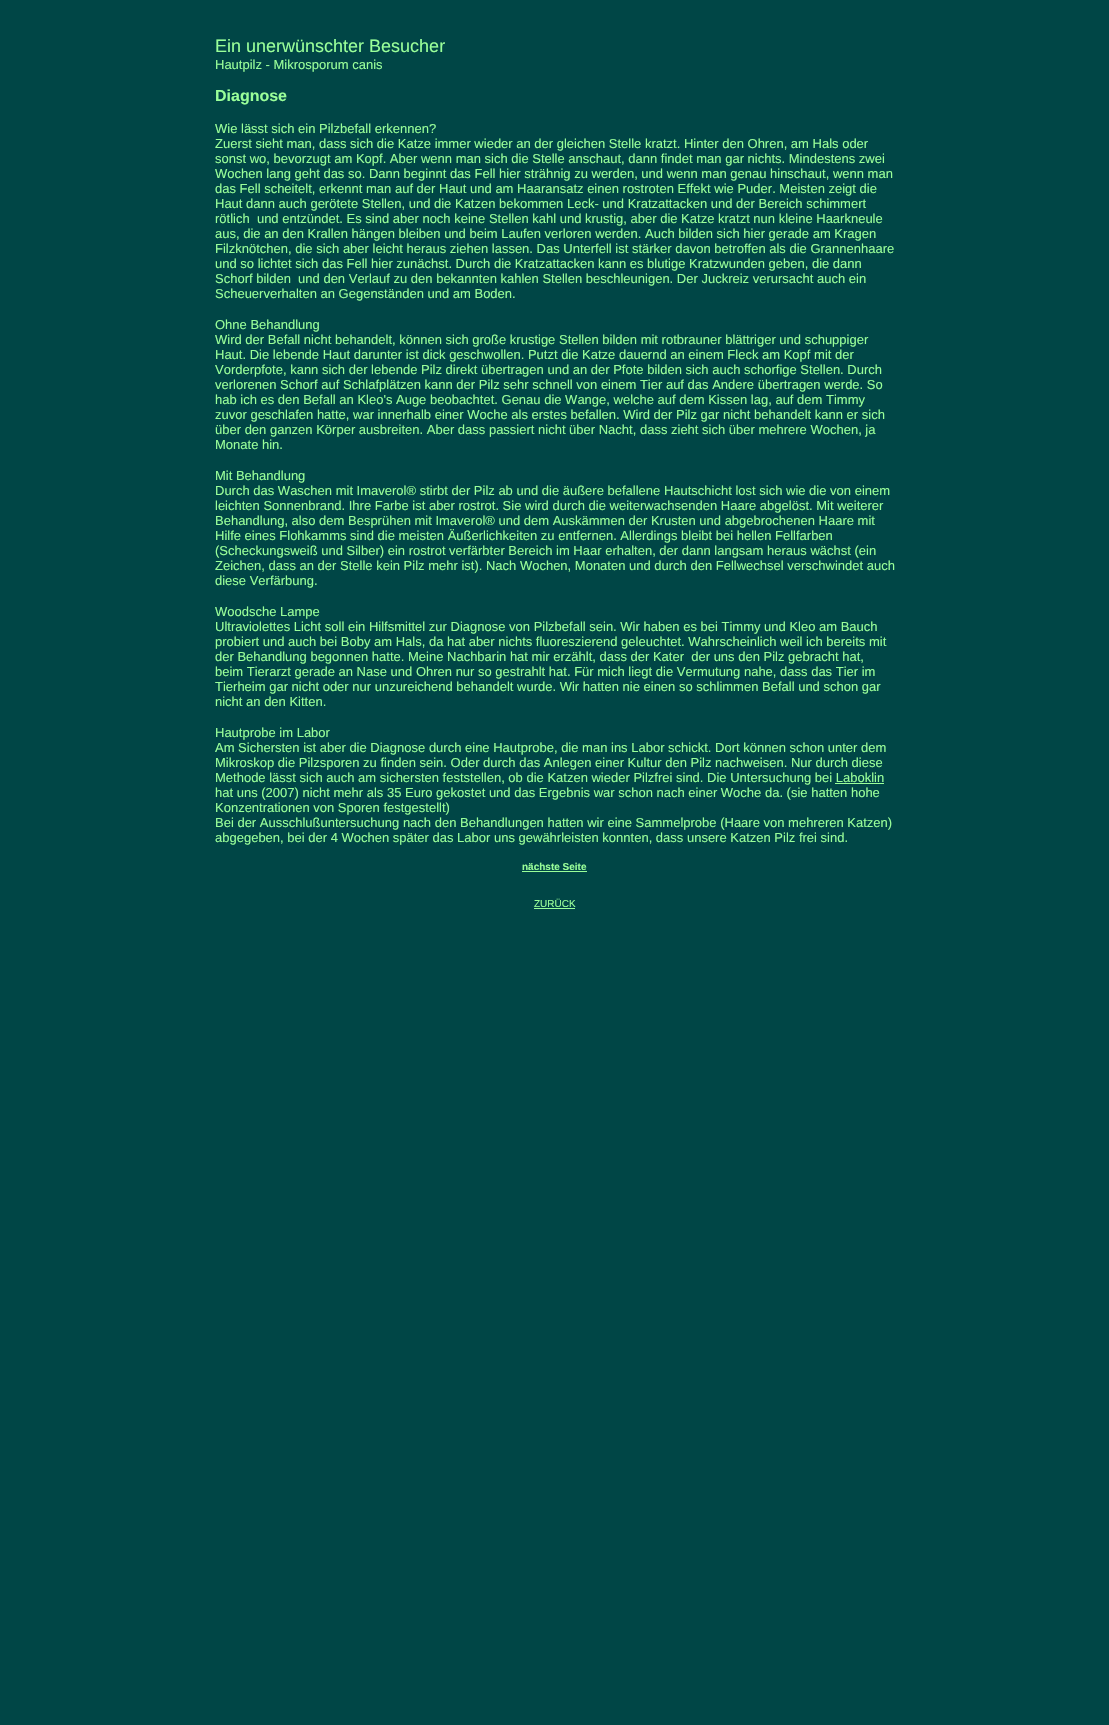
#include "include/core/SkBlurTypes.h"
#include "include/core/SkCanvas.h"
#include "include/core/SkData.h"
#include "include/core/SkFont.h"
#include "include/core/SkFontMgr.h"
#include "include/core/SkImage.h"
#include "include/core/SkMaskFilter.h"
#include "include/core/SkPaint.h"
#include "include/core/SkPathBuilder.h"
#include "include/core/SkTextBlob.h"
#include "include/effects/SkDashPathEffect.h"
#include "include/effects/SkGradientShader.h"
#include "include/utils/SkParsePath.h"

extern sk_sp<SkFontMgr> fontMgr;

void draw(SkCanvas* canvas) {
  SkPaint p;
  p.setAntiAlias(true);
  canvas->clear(SkColorSetRGB(0, 70, 70));
  p.setColor(SkColorSetRGB(153, 255, 153));
  canvas->drawRect(SkRect::MakeLTRB(835, 783, 884, 784), p);
  canvas->drawRect(SkRect::MakeLTRB(522, 871, 587, 872), p);
  canvas->drawRect(SkRect::MakeLTRB(534, 908, 575, 909), p);
  SkFont font1(fontMgr->matchFamilyStyle("Liberation Sans", SkFontStyle::Normal()), 18);
  font1.setSubpixel(true);
  canvas->drawString("Ein unerwünschter Besucher", 215, 52, font1, p);
  SkFont font2(fontMgr->matchFamilyStyle("Liberation Sans", SkFontStyle::Normal()), 13);
  font2.setSubpixel(true);
  canvas->drawString("Hautpilz - Mikrosporum canis", 215, 69, font2, p);
  SkFont font3(fontMgr->matchFamilyStyle("Liberation Sans", SkFontStyle::Bold()), 16);
  font3.setSubpixel(true);
  canvas->drawString("Diagnose", 215, 101, font3, p);
  canvas->drawString("Wie lässt sich ein Pilzbefall erkennen?", 215, 133, font2, p);
  canvas->drawString("Zuerst sieht man, dass sich die Katze immer wieder an der gleichen Stelle kratzt. Hinter den Ohren, am Hals oder", 215, 148, font2, p);
  canvas->drawString("sonst wo, bevorzugt am Kopf. Aber wenn man sich die Stelle anschaut, dann findet man gar nichts. Mindestens zwei", 215, 163, font2, p);
  canvas->drawString("Wochen lang geht das so. Dann beginnt das Fell hier strähnig zu werden, und wenn man genau hinschaut, wenn man", 215, 178, font2, p);
  canvas->drawString("das Fell scheitelt, erkennt man auf der Haut und am Haaransatz einen rostroten Effekt wie Puder. Meisten zeigt die", 215, 193, font2, p);
  canvas->drawString("Haut dann auch gerötete Stellen, und die Katzen bekommen Leck- und Kratzattacken und der Bereich schimmert", 215, 208, font2, p);
  canvas->drawString("rötlich  und entzündet. Es sind aber noch keine Stellen kahl und krustig, aber die Katze kratzt nun kleine Haarkneule", 215, 223, font2, p);
  canvas->drawString("aus, die an den Krallen hängen bleiben und beim Laufen verloren werden. Auch bilden sich hier gerade am Kragen", 215, 238, font2, p);
  canvas->drawString("Filzknötchen, die sich aber leicht heraus ziehen lassen. Das Unterfell ist stärker davon betroffen als die Grannenhaare", 215, 253, font2, p);
  canvas->drawString("und so lichtet sich das Fell hier zunächst. Durch die Kratzattacken kann es blutige Kratzwunden geben, die dann", 215, 268, font2, p);
  canvas->drawString("Schorf bilden  und den Verlauf zu den bekannten kahlen Stellen beschleunigen. Der Juckreiz verursacht auch ein", 215, 283, font2, p);
  canvas->drawString("Scheuerverhalten an Gegenständen und am Boden.", 215, 298, font2, p);
  canvas->drawString("Ohne Behandlung", 215, 329, font2, p);
  canvas->drawString("Wird der Befall nicht behandelt, können sich große krustige Stellen bilden mit rotbrauner blättriger und schuppiger", 215, 344, font2, p);
  canvas->drawString("Haut. Die lebende Haut darunter ist dick geschwollen. Putzt die Katze dauernd an einem Fleck am Kopf mit der", 215, 359, font2, p);
  canvas->drawString("Vorderpfote, kann sich der lebende Pilz direkt übertragen und an der Pfote bilden sich auch schorfige Stellen. Durch", 215, 374, font2, p);
  canvas->drawString("verlorenen Schorf auf Schlafplätzen kann der Pilz sehr schnell von einem Tier auf das Andere übertragen werde. So", 215, 389, font2, p);
  canvas->drawString("hab ich es den Befall an Kleo's Auge beobachtet. Genau die Wange, welche auf dem Kissen lag, auf dem Timmy", 215, 404, font2, p);
  canvas->drawString("zuvor geschlafen hatte, war innerhalb einer Woche als erstes befallen. Wird der Pilz gar nicht behandelt kann er sich", 215, 419, font2, p);
  canvas->drawString("über den ganzen Körper ausbreiten. Aber dass passiert nicht über Nacht, dass zieht sich über mehrere Wochen, ja", 215, 434, font2, p);
  canvas->drawString("Monate hin.", 215, 449, font2, p);
  canvas->drawString("Mit Behandlung", 215, 480, font2, p);
  canvas->drawString("Durch das Waschen mit Imaverol® stirbt der Pilz ab und die äußere befallene Hautschicht lost sich wie die von einem", 215, 495, font2, p);
  canvas->drawString("leichten Sonnenbrand. Ihre Farbe ist aber rostrot. Sie wird durch die weiterwachsenden Haare abgelöst. Mit weiterer", 215, 510, font2, p);
  canvas->drawString("Behandlung, also dem Besprühen mit Imaverol® und dem Auskämmen der Krusten und abgebrochenen Haare mit", 215, 525, font2, p);
  canvas->drawString("Hilfe eines Flohkamms sind die meisten Äußerlichkeiten zu entfernen. Allerdings bleibt bei hellen Fellfarben", 215, 540, font2, p);
  canvas->drawString("(Scheckungsweiß und Silber) ein rostrot verfärbter Bereich im Haar erhalten, der dann langsam heraus wächst (ein", 215, 555, font2, p);
  canvas->drawString("Zeichen, dass an der Stelle kein Pilz mehr ist). Nach Wochen, Monaten und durch den Fellwechsel verschwindet auch", 215, 570, font2, p);
  canvas->drawString("diese Verfärbung.", 215, 585, font2, p);
  canvas->drawString("Woodsche Lampe", 215, 616, font2, p);
  canvas->drawString("Ultraviolettes Licht soll ein Hilfsmittel zur Diagnose von Pilzbefall sein. Wir haben es bei Timmy und Kleo am Bauch", 215, 631, font2, p);
  canvas->drawString("probiert und auch bei Boby am Hals, da hat aber nichts fluoreszierend geleuchtet. Wahrscheinlich weil ich bereits mit", 215, 646, font2, p);
  canvas->drawString("der Behandlung begonnen hatte. Meine Nachbarin hat mir erzählt, dass der Kater  der uns den Pilz gebracht hat,", 215, 661, font2, p);
  canvas->drawString("beim Tierarzt gerade an Nase und Ohren nur so gestrahlt hat. Für mich liegt die Vermutung nahe, dass das Tier im", 215, 676, font2, p);
  canvas->drawString("Tierheim gar nicht oder nur unzureichend behandelt wurde. Wir hatten nie einen so schlimmen Befall und schon gar", 215, 691, font2, p);
  canvas->drawString("nicht an den Kitten.", 215, 706, font2, p);
  canvas->drawString("Hautprobe im Labor", 215, 737, font2, p);
  canvas->drawString("Am Sichersten ist aber die Diagnose durch eine Hautprobe, die man ins Labor schickt. Dort können schon unter dem", 215, 752, font2, p);
  canvas->drawString("Mikroskop die Pilzsporen zu finden sein. Oder durch das Anlegen einer Kultur den Pilz nachweisen. Nur durch diese", 215, 767, font2, p);
  canvas->drawString("Methode lässt sich auch am sichersten feststellen, ob die Katzen wieder Pilzfrei sind. Die Untersuchung bei Laboklin", 215, 782, font2, p);
  canvas->drawString("hat uns (2007) nicht mehr als 35 Euro gekostet und das Ergebnis war schon nach einer Woche da. (sie hatten hohe", 215, 797, font2, p);
  canvas->drawString("Konzentrationen von Sporen festgestellt)", 215, 812, font2, p);
  canvas->drawString("Bei der Ausschlußuntersuchung nach den Behandlungen hatten wir eine Sammelprobe (Haare von mehreren Katzen)", 215, 827, font2, p);
  canvas->drawString("abgegeben, bei der 4 Wochen später das Labor uns gewährleisten konnten, dass unsere Katzen Pilz frei sind.", 215, 842, font2, p);
  SkFont font4(fontMgr->matchFamilyStyle("Liberation Sans", SkFontStyle::Bold()), 10);
  font4.setSubpixel(true);
  canvas->drawString("nächste Seite", 522, 870, font4, p);
  SkFont font5(fontMgr->matchFamilyStyle("Liberation Sans", SkFontStyle::Normal()), 10);
  font5.setSubpixel(true);
  canvas->drawString("ZURÜCK", 534, 907, font5, p);
}
